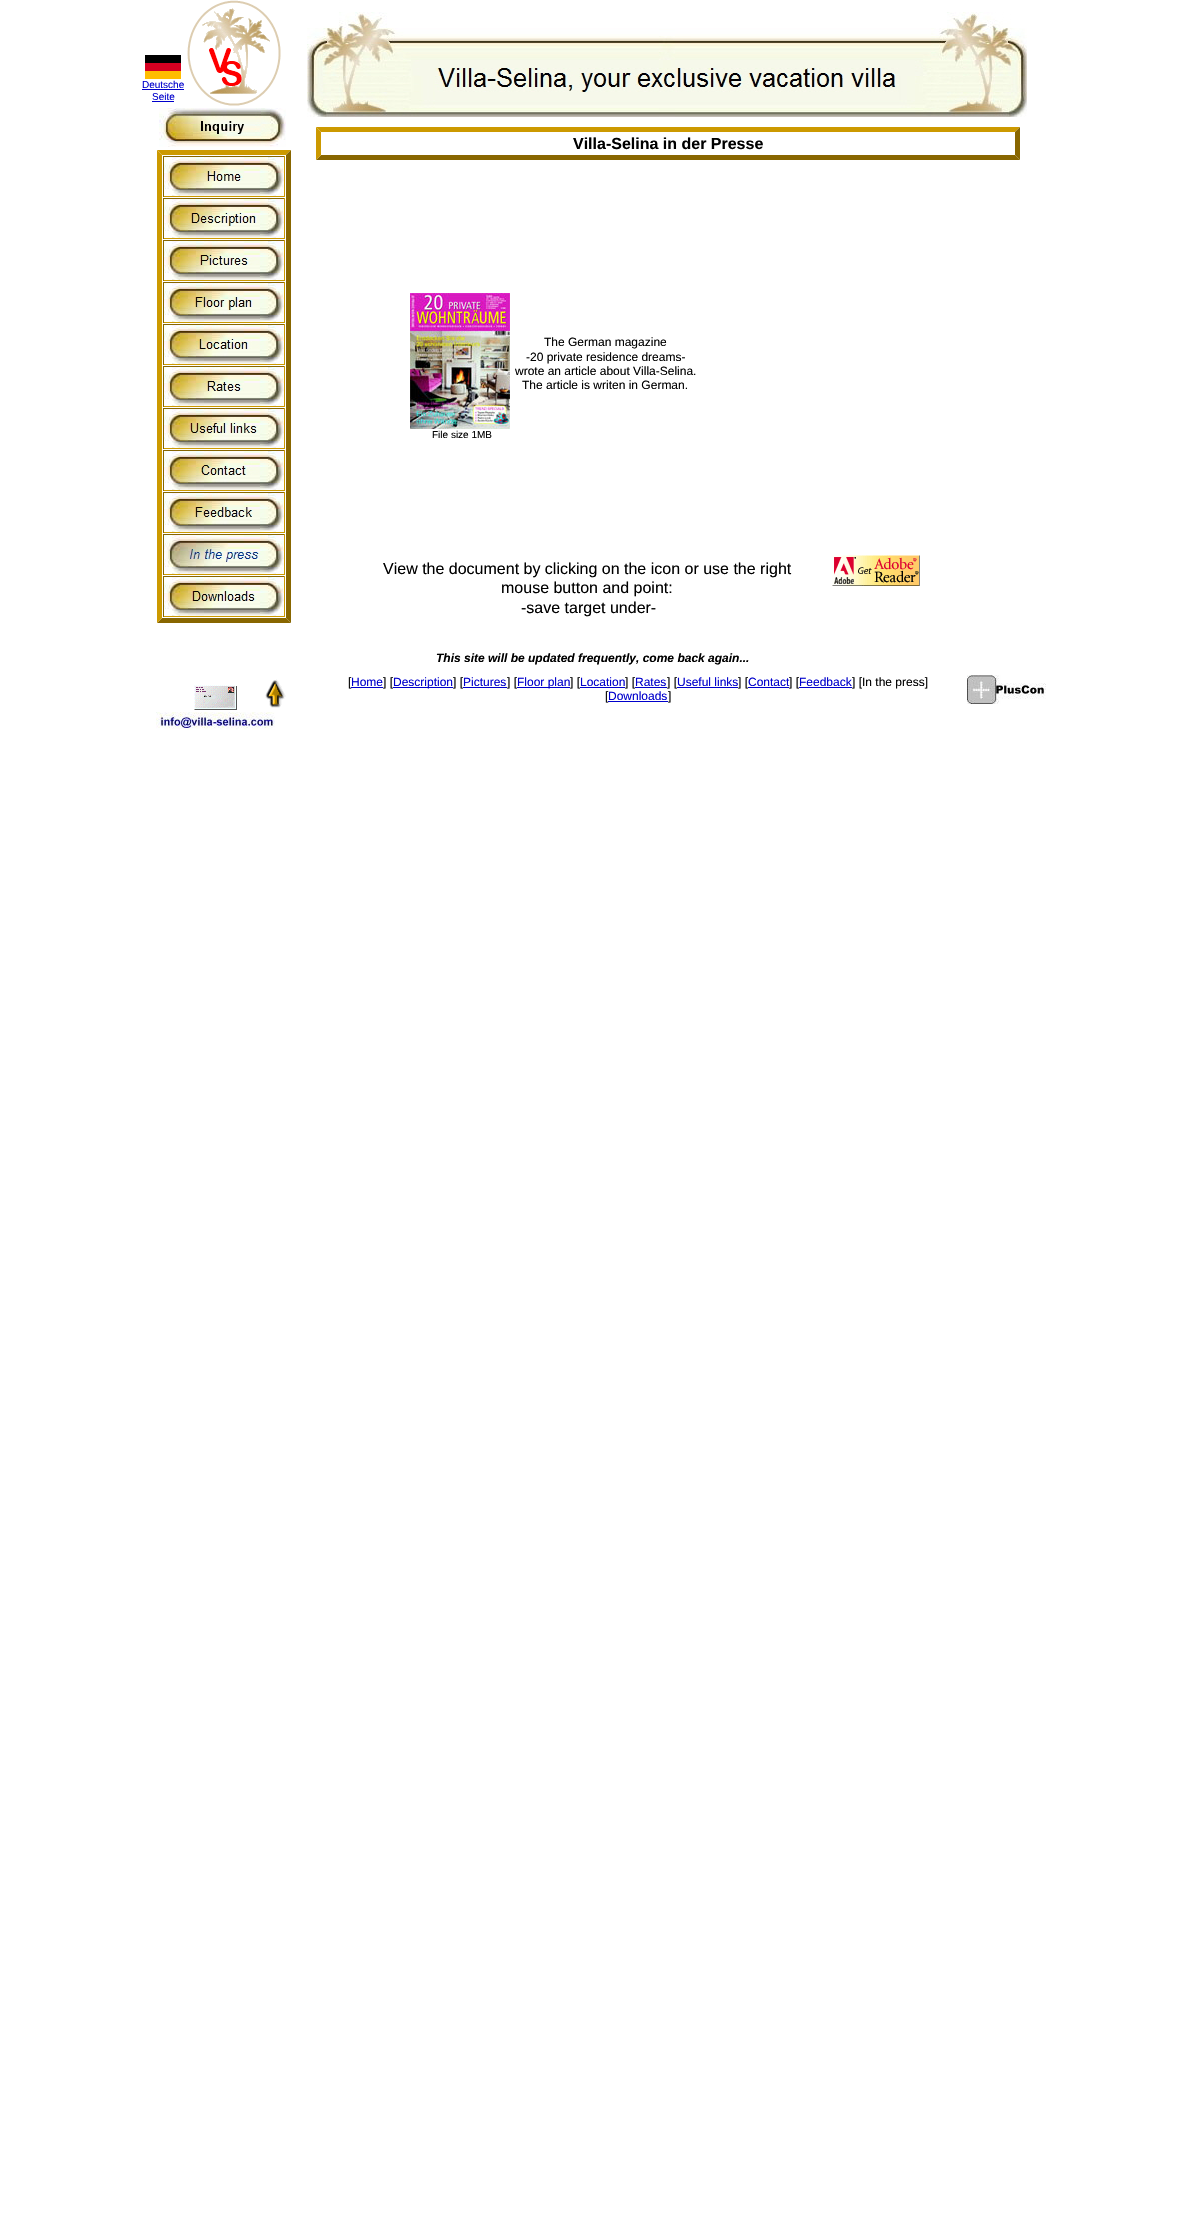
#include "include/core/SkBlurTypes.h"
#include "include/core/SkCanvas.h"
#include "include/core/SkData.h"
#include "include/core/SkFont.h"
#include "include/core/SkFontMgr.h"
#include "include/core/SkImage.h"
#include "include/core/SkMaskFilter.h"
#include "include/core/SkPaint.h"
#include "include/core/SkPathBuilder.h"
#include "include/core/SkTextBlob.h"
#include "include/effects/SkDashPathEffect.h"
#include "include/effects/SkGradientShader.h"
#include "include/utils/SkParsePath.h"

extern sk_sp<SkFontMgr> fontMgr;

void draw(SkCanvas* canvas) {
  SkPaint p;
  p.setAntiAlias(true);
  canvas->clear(SK_ColorWHITE);
  canvas->drawImageRect(SkImages::DeferredFromEncodedData(SkData::MakeFromFileName("images/1.png")), SkRect::MakeLTRB(145, 55, 181, 79), SkSamplingOptions());
  p.setColor(SkColorSetRGB(0, 0, 204));
  canvas->drawRect(SkRect::MakeLTRB(142, 89, 184, 90), p);
  canvas->drawRect(SkRect::MakeLTRB(152, 101, 174, 102), p);
  canvas->drawImageRect(SkImages::DeferredFromEncodedData(SkData::MakeFromFileName("images/2.png")), SkRect::MakeLTRB(187, 0, 281, 106), SkSamplingOptions());
  canvas->drawImageRect(SkImages::DeferredFromEncodedData(SkData::MakeFromFileName("images/3.png")), SkRect::MakeLTRB(159, 108, 286, 147), SkSamplingOptions());
  p.setColor(SkColorSetRGB(204, 153, 0));
  canvas->drawPath(SkPathBuilder().moveTo(157, 150).lineTo(291, 150).lineTo(286, 155).lineTo(162, 155).close().detach(), p);
  p.setColor(SkColorSetRGB(136, 102, 0));
  canvas->drawPath(SkPathBuilder().moveTo(291, 150).lineTo(291, 623).lineTo(286, 618).lineTo(286, 155).close().detach(), p);
  canvas->drawPath(SkPathBuilder().moveTo(291, 623).lineTo(157, 623).lineTo(162, 618).lineTo(286, 618).close().detach(), p);
  p.setColor(SkColorSetRGB(204, 153, 0));
  canvas->drawPath(SkPathBuilder().moveTo(157, 623).lineTo(157, 150).lineTo(162, 155).lineTo(162, 618).close().detach(), p);
  p.setColor(SkColorSetRGB(136, 102, 0));
  canvas->drawRect(SkRect::MakeLTRB(163, 156, 285, 157), p);
  p.setColor(SkColorSetRGB(204, 153, 0));
  canvas->drawRect(SkRect::MakeLTRB(284, 156, 285, 197), p);
  canvas->drawRect(SkRect::MakeLTRB(163, 196, 285, 197), p);
  p.setColor(SkColorSetRGB(136, 102, 0));
  canvas->drawRect(SkRect::MakeLTRB(163, 156, 164, 197), p);
  canvas->drawImageRect(SkImages::DeferredFromEncodedData(SkData::MakeFromFileName("images/4.png")), SkRect::MakeLTRB(164, 157, 284, 196), SkSamplingOptions());
  canvas->drawRect(SkRect::MakeLTRB(163, 198, 285, 199), p);
  p.setColor(SkColorSetRGB(204, 153, 0));
  canvas->drawRect(SkRect::MakeLTRB(284, 198, 285, 239), p);
  canvas->drawRect(SkRect::MakeLTRB(163, 238, 285, 239), p);
  p.setColor(SkColorSetRGB(136, 102, 0));
  canvas->drawRect(SkRect::MakeLTRB(163, 198, 164, 239), p);
  canvas->drawImageRect(SkImages::DeferredFromEncodedData(SkData::MakeFromFileName("images/5.png")), SkRect::MakeLTRB(164, 199, 284, 238), SkSamplingOptions());
  canvas->drawRect(SkRect::MakeLTRB(163, 240, 285, 241), p);
  p.setColor(SkColorSetRGB(204, 153, 0));
  canvas->drawRect(SkRect::MakeLTRB(284, 240, 285, 281), p);
  canvas->drawRect(SkRect::MakeLTRB(163, 280, 285, 281), p);
  p.setColor(SkColorSetRGB(136, 102, 0));
  canvas->drawRect(SkRect::MakeLTRB(163, 240, 164, 281), p);
  canvas->drawImageRect(SkImages::DeferredFromEncodedData(SkData::MakeFromFileName("images/6.png")), SkRect::MakeLTRB(164, 241, 284, 280), SkSamplingOptions());
  canvas->drawRect(SkRect::MakeLTRB(163, 282, 285, 283), p);
  p.setColor(SkColorSetRGB(204, 153, 0));
  canvas->drawRect(SkRect::MakeLTRB(284, 282, 285, 323), p);
  canvas->drawRect(SkRect::MakeLTRB(163, 322, 285, 323), p);
  p.setColor(SkColorSetRGB(136, 102, 0));
  canvas->drawRect(SkRect::MakeLTRB(163, 282, 164, 323), p);
  canvas->drawImageRect(SkImages::DeferredFromEncodedData(SkData::MakeFromFileName("images/7.png")), SkRect::MakeLTRB(164, 283, 284, 322), SkSamplingOptions());
  canvas->drawRect(SkRect::MakeLTRB(163, 324, 285, 325), p);
  p.setColor(SkColorSetRGB(204, 153, 0));
  canvas->drawRect(SkRect::MakeLTRB(284, 324, 285, 365), p);
  canvas->drawRect(SkRect::MakeLTRB(163, 364, 285, 365), p);
  p.setColor(SkColorSetRGB(136, 102, 0));
  canvas->drawRect(SkRect::MakeLTRB(163, 324, 164, 365), p);
  canvas->drawImageRect(SkImages::DeferredFromEncodedData(SkData::MakeFromFileName("images/8.png")), SkRect::MakeLTRB(164, 325, 284, 364), SkSamplingOptions());
  canvas->drawRect(SkRect::MakeLTRB(163, 366, 285, 367), p);
  p.setColor(SkColorSetRGB(204, 153, 0));
  canvas->drawRect(SkRect::MakeLTRB(284, 366, 285, 407), p);
  canvas->drawRect(SkRect::MakeLTRB(163, 406, 285, 407), p);
  p.setColor(SkColorSetRGB(136, 102, 0));
  canvas->drawRect(SkRect::MakeLTRB(163, 366, 164, 407), p);
  canvas->drawImageRect(SkImages::DeferredFromEncodedData(SkData::MakeFromFileName("images/9.png")), SkRect::MakeLTRB(164, 367, 284, 406), SkSamplingOptions());
  canvas->drawRect(SkRect::MakeLTRB(163, 408, 285, 409), p);
  p.setColor(SkColorSetRGB(204, 153, 0));
  canvas->drawRect(SkRect::MakeLTRB(284, 408, 285, 449), p);
  canvas->drawRect(SkRect::MakeLTRB(163, 448, 285, 449), p);
  p.setColor(SkColorSetRGB(136, 102, 0));
  canvas->drawRect(SkRect::MakeLTRB(163, 408, 164, 449), p);
  canvas->drawImageRect(SkImages::DeferredFromEncodedData(SkData::MakeFromFileName("images/10.png")), SkRect::MakeLTRB(164, 409, 284, 448), SkSamplingOptions());
  canvas->drawRect(SkRect::MakeLTRB(163, 450, 285, 451), p);
  p.setColor(SkColorSetRGB(204, 153, 0));
  canvas->drawRect(SkRect::MakeLTRB(284, 450, 285, 491), p);
  canvas->drawRect(SkRect::MakeLTRB(163, 490, 285, 491), p);
  p.setColor(SkColorSetRGB(136, 102, 0));
  canvas->drawRect(SkRect::MakeLTRB(163, 450, 164, 491), p);
  canvas->drawImageRect(SkImages::DeferredFromEncodedData(SkData::MakeFromFileName("images/11.png")), SkRect::MakeLTRB(164, 451, 284, 490), SkSamplingOptions());
  canvas->drawRect(SkRect::MakeLTRB(163, 492, 285, 493), p);
  p.setColor(SkColorSetRGB(204, 153, 0));
  canvas->drawRect(SkRect::MakeLTRB(284, 492, 285, 533), p);
  canvas->drawRect(SkRect::MakeLTRB(163, 532, 285, 533), p);
  p.setColor(SkColorSetRGB(136, 102, 0));
  canvas->drawRect(SkRect::MakeLTRB(163, 492, 164, 533), p);
  canvas->drawImageRect(SkImages::DeferredFromEncodedData(SkData::MakeFromFileName("images/12.png")), SkRect::MakeLTRB(164, 493, 284, 532), SkSamplingOptions());
  canvas->drawRect(SkRect::MakeLTRB(163, 534, 285, 535), p);
  p.setColor(SkColorSetRGB(204, 153, 0));
  canvas->drawRect(SkRect::MakeLTRB(284, 534, 285, 575), p);
  canvas->drawRect(SkRect::MakeLTRB(163, 574, 285, 575), p);
  p.setColor(SkColorSetRGB(136, 102, 0));
  canvas->drawRect(SkRect::MakeLTRB(163, 534, 164, 575), p);
  canvas->drawImageRect(SkImages::DeferredFromEncodedData(SkData::MakeFromFileName("images/13.png")), SkRect::MakeLTRB(164, 535, 284, 574), SkSamplingOptions());
  canvas->drawRect(SkRect::MakeLTRB(163, 576, 285, 577), p);
  p.setColor(SkColorSetRGB(204, 153, 0));
  canvas->drawRect(SkRect::MakeLTRB(284, 576, 285, 617), p);
  canvas->drawRect(SkRect::MakeLTRB(163, 616, 285, 617), p);
  p.setColor(SkColorSetRGB(136, 102, 0));
  canvas->drawRect(SkRect::MakeLTRB(163, 576, 164, 617), p);
  canvas->drawImageRect(SkImages::DeferredFromEncodedData(SkData::MakeFromFileName("images/14.png")), SkRect::MakeLTRB(164, 577, 284, 616), SkSamplingOptions());
  canvas->drawImageRect(SkImages::DeferredFromEncodedData(SkData::MakeFromFileName("images/15.png")), SkRect::MakeLTRB(307, 12, 1027, 117), SkSamplingOptions());
  p.setColor(SkColorSetRGB(204, 153, 0));
  canvas->drawPath(SkPathBuilder().moveTo(316, 127).lineTo(1020, 127).lineTo(1015, 132).lineTo(321, 132).close().detach(), p);
  p.setColor(SkColorSetRGB(136, 102, 0));
  canvas->drawPath(SkPathBuilder().moveTo(1020, 127).lineTo(1020, 160).lineTo(1015, 155).lineTo(1015, 132).close().detach(), p);
  canvas->drawPath(SkPathBuilder().moveTo(1020, 160).lineTo(316, 160).lineTo(321, 155).lineTo(1015, 155).close().detach(), p);
  p.setColor(SkColorSetRGB(204, 153, 0));
  canvas->drawPath(SkPathBuilder().moveTo(316, 160).lineTo(316, 127).lineTo(321, 132).lineTo(321, 155).close().detach(), p);
  canvas->drawImageRect(SkImages::DeferredFromEncodedData(SkData::MakeFromFileName("images/16.png")), SkRect::MakeLTRB(410, 293, 510, 429), SkSamplingOptions());
  canvas->drawImageRect(SkImages::DeferredFromEncodedData(SkData::MakeFromFileName("images/17.png")), SkRect::MakeLTRB(832, 555, 920, 586), SkSamplingOptions());
  canvas->drawImageRect(SkImages::DeferredFromEncodedData(SkData::MakeFromFileName("images/18.png")), SkRect::MakeLTRB(194, 685, 237, 710), SkSamplingOptions());
  canvas->drawImageRect(SkImages::DeferredFromEncodedData(SkData::MakeFromFileName("images/19.png")), SkRect::MakeLTRB(265, 679, 286, 708), SkSamplingOptions());
  canvas->drawImageRect(SkImages::DeferredFromEncodedData(SkData::MakeFromFileName("images/20.png")), SkRect::MakeLTRB(156, 712, 275, 730), SkSamplingOptions());
  p.setColor(SkColorSetRGB(0, 0, 204));
  canvas->drawRect(SkRect::MakeLTRB(517, 687, 570, 688), p);
  canvas->drawRect(SkRect::MakeLTRB(580, 687, 625, 688), p);
  canvas->drawRect(SkRect::MakeLTRB(677, 687, 738, 688), p);
  canvas->drawRect(SkRect::MakeLTRB(748, 687, 789, 688), p);
  canvas->drawImageRect(SkImages::DeferredFromEncodedData(SkData::MakeFromFileName("images/21.png")), SkRect::MakeLTRB(967, 675, 1046, 704), SkSamplingOptions());
  SkFont font1(fontMgr->matchFamilyStyle("Liberation Sans", SkFontStyle::Normal()), 10);
  font1.setSubpixel(true);
  canvas->drawString("Deutsche", 142, 88, font1, p);
  canvas->drawString("Seite", 152, 100, font1, p);
  SkFont font2(fontMgr->matchFamilyStyle("Liberation Sans", SkFontStyle::Bold()), 16);
  font2.setSubpixel(true);
  p.setColor(SK_ColorBLACK);
  canvas->drawString("Villa-Selina in der Presse", 573, 149, font2, p);
  SkFont font3(fontMgr->matchFamilyStyle("Liberation Sans", SkFontStyle::Normal()), 12);
  font3.setSubpixel(true);
  canvas->drawString("The German magazine", 544, 346, font3, p);
  canvas->drawString("-20 private residence dreams-", 526, 361, font3, p);
  canvas->drawString("wrote an article about Villa-Selina.", 515, 375, font3, p);
  canvas->drawString("The article is writen in German.", 522, 389, font3, p);
  canvas->drawString("File size 1MB", 432, 438, font1, p);
  SkFont font4(fontMgr->matchFamilyStyle("Liberation Sans", SkFontStyle::Normal()), 16);
  font4.setSubpixel(true);
  canvas->drawString("View the document by clicking on the icon or use the right", 383, 574, font4, p);
  canvas->drawString("mouse button and point:", 501, 593, font4, p);
  canvas->drawString("-save target under-", 521, 613, font4, p);
  SkFont font5(fontMgr->matchFamilyStyle("Liberation Sans", SkFontStyle::BoldItalic()), 12);
  font5.setSubpixel(true);
  canvas->drawString("This site will be updated frequently, come back again...", 436, 662, font5, p);
  canvas->drawString("[", 348, 686, font3, p);
  p.setColor(SkColorSetRGB(0, 0, 204));
  canvas->drawString("Home", 351, 686, font3, p);
  canvas->drawRect(SkRect::MakeLTRB(351, 687, 383, 688), p);
  p.setColor(SK_ColorBLACK);
  canvas->drawString("] [", 383, 686, font3, p);
  p.setColor(SkColorSetRGB(0, 0, 204));
  canvas->drawRect(SkRect::MakeLTRB(393, 687, 453, 688), p);
  canvas->drawString("Description", 393, 686, font3, p);
  p.setColor(SK_ColorBLACK);
  canvas->drawString("] [", 453, 686, font3, p);
  p.setColor(SkColorSetRGB(0, 0, 204));
  canvas->drawString("Pictures", 463, 686, font3, p);
  canvas->drawRect(SkRect::MakeLTRB(463, 687, 507, 688), p);
  p.setColor(SK_ColorBLACK);
  canvas->drawString("] [", 507, 686, font3, p);
  p.setColor(SkColorSetRGB(0, 0, 204));
  canvas->drawString("Floor plan", 517, 686, font3, p);
  p.setColor(SK_ColorBLACK);
  canvas->drawString("] [", 570, 686, font3, p);
  p.setColor(SkColorSetRGB(0, 0, 204));
  canvas->drawString("Location", 580, 686, font3, p);
  p.setColor(SK_ColorBLACK);
  canvas->drawString("] [", 625, 686, font3, p);
  p.setColor(SkColorSetRGB(0, 0, 204));
  canvas->drawString("Rates", 635, 686, font3, p);
  canvas->drawRect(SkRect::MakeLTRB(635, 687, 667, 688), p);
  p.setColor(SK_ColorBLACK);
  canvas->drawString("] [", 667, 686, font3, p);
  p.setColor(SkColorSetRGB(0, 0, 204));
  canvas->drawString("Useful links", 677, 686, font3, p);
  p.setColor(SK_ColorBLACK);
  canvas->drawString("] [", 738, 686, font3, p);
  p.setColor(SkColorSetRGB(0, 0, 204));
  canvas->drawString("Contact", 748, 686, font3, p);
  p.setColor(SK_ColorBLACK);
  canvas->drawString("] [", 789, 686, font3, p);
  p.setColor(SkColorSetRGB(0, 0, 204));
  canvas->drawString("Feedback", 799, 686, font3, p);
  canvas->drawRect(SkRect::MakeLTRB(799, 687, 852, 688), p);
  p.setColor(SK_ColorBLACK);
  canvas->drawString("] [In the press]", 852, 686, font3, p);
  canvas->drawString("[", 605, 700, font3, p);
  p.setColor(SkColorSetRGB(0, 0, 204));
  canvas->drawString("Downloads", 608, 700, font3, p);
  canvas->drawRect(SkRect::MakeLTRB(608, 701, 668, 702), p);
  p.setColor(SK_ColorBLACK);
  canvas->drawString("]", 668, 700, font3, p);
}
